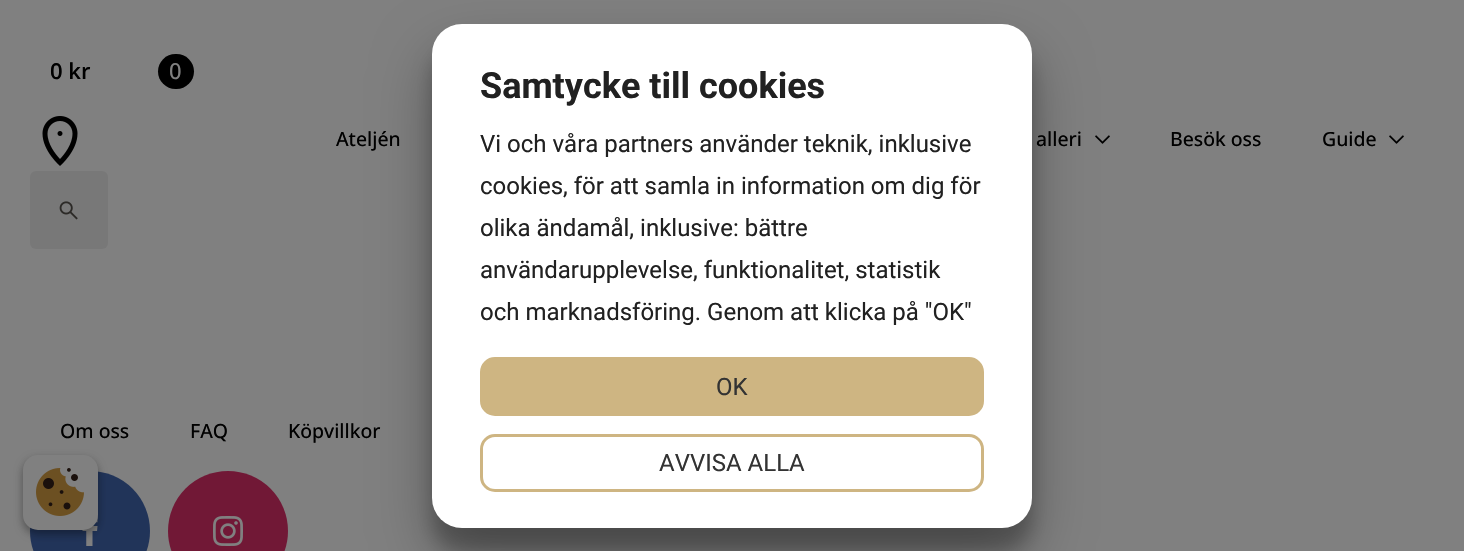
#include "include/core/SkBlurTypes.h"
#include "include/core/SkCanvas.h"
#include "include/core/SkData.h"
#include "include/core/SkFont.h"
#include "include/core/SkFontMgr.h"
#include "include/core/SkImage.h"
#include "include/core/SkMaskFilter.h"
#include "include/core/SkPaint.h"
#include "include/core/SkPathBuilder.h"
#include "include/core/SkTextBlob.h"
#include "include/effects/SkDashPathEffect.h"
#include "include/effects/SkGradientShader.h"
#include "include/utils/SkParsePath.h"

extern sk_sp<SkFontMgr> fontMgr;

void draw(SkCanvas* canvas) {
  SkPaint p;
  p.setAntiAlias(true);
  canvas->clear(SkColorSetRGB(128, 128, 128));
  p.setColor(SK_ColorBLACK);
  canvas->drawRoundRect(SkRect::MakeLTRB(158, 54, 194, 89), 17.5f, 17.5f, p);
  canvas->drawImageRect(SkImages::DeferredFromEncodedData(SkData::MakeFromFileName("images/1.png")), SkRect::MakeLTRB(42, 116, 78, 166), SkSamplingOptions());
  p.setColor(SkColorSetRGB(120, 120, 120));
  canvas->drawRoundRect(SkRect::MakeLTRB(30, 171, 108, 249), 6, 6, p);
  canvas->drawImageRect(SkImages::DeferredFromEncodedData(SkData::MakeFromFileName("images/2.png")), SkRect::MakeLTRB(59, 201, 78, 220), SkSamplingOptions());
  canvas->drawImageRect(SkImages::DeferredFromEncodedData(SkData::MakeFromFileName("images/3.png")), SkRect::MakeLTRB(1095, 135, 1110, 144), SkSamplingOptions());
  canvas->drawImageRect(SkImages::DeferredFromEncodedData(SkData::MakeFromFileName("images/3.png")), SkRect::MakeLTRB(1389, 135, 1404, 144), SkSamplingOptions());
  p.setColor(SkColorSetRGB(33, 52, 89));
  canvas->drawCircle(90, 531, 60, p);
  canvas->drawImageRect(SkImages::DeferredFromEncodedData(SkData::MakeFromFileName("images/4.png")), SkRect::MakeLTRB(82, 516, 98, 546), SkSamplingOptions());
  p.setColor(SkColorSetRGB(113, 24, 54));
  canvas->drawCircle(228, 531, 60, p);
  canvas->drawImageRect(SkImages::DeferredFromEncodedData(SkData::MakeFromFileName("images/5.png")), SkRect::MakeLTRB(213, 516, 243, 546), SkSamplingOptions());
  p.setColor(SkColorSetARGB(56, 0, 0, 0));
  p.setMaskFilter(SkMaskFilter::MakeBlur(kNormal_SkBlurStyle, 9));
  canvas->drawRoundRect(SkRect::MakeLTRB(432, 47, 1032, 551), 30, 30, p);
  p.setMaskFilter(nullptr);
  p.setColor(SkColorSetARGB(77, 0, 0, 0));
  p.setMaskFilter(SkMaskFilter::MakeBlur(kNormal_SkBlurStyle, 28.5f));
  canvas->drawRoundRect(SkRect::MakeLTRB(432, 53, 1032, 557), 30, 30, p);
  p.setMaskFilter(nullptr);
  p.setColor(SK_ColorWHITE);
  canvas->drawRoundRect(SkRect::MakeLTRB(432, 24, 1032, 528), 30, 30, p);
  p.setColor(SkColorSetRGB(206, 181, 130));
  canvas->drawRoundRect(SkRect::MakeLTRB(481.5f, 358.5f, 982.5f, 414.5f), 13.5f, 13.5f, p);
  p.setStyle(SkPaint::kStroke_Style);
  p.setStrokeWidth(3);
  canvas->drawRoundRect(SkRect::MakeLTRB(481.5f, 358.5f, 982.5f, 414.5f), 13.5f, 13.5f, p);
  canvas->drawRoundRect(SkRect::MakeLTRB(481.5f, 435.5f, 982.5f, 490.5f), 13.5f, 13.5f, p);
  p.setStyle(SkPaint::kFill_Style);
  p.setColor(SkColorSetARGB(59, 0, 0, 0));
  p.setMaskFilter(SkMaskFilter::MakeBlur(kNormal_SkBlurStyle, 4.5f));
  canvas->drawRoundRect(SkRect::MakeLTRB(23, 459, 98, 534), 15, 15, p);
  p.setMaskFilter(nullptr);
  p.setColor(SkColorSetARGB(41, 0, 0, 0));
  p.setMaskFilter(SkMaskFilter::MakeBlur(kNormal_SkBlurStyle, 4.5f));
  canvas->drawRoundRect(SkRect::MakeLTRB(23, 459, 98, 534), 15, 15, p);
  p.setMaskFilter(nullptr);
  p.setColor(SkColorSetRGB(128, 128, 128));
  canvas->drawRoundRect(SkRect::MakeLTRB(23, 455, 98, 530), 15, 15, p);
  canvas->drawImageRect(SkImages::DeferredFromEncodedData(SkData::MakeFromFileName("images/6.png")), SkRect::MakeLTRB(36, 468, 84, 516), SkSamplingOptions());
  SkFont font1(fontMgr->matchFamilyStyle("Open Sans", SkFontStyle(600, SkFontStyle::kNormal_Width, SkFontStyle::kUpright_Slant)), 22);
  font1.setSubpixel(true);
  p.setColor(SK_ColorBLACK);
  canvas->drawString("0 kr", 50, 79, font1, p);
  SkFont font2(fontMgr->matchFamilyStyle("Open Sans", SkFontStyle(500, SkFontStyle::kNormal_Width, SkFontStyle::kUpright_Slant)), 22);
  font2.setSubpixel(true);
  p.setColor(SkColorSetRGB(128, 128, 128));
  canvas->drawString("0", 169, 79, font2, p);
  SkFont font3(fontMgr->matchFamilyStyle("Open Sans", SkFontStyle(500, SkFontStyle::kNormal_Width, SkFontStyle::kUpright_Slant)), 19.5f);
  font3.setSubpixel(true);
  p.setColor(SK_ColorBLACK);
  canvas->drawString("Ateljén", 336, 146, font3, p);
  canvas->drawString("alleri", 1036, 146, font3, p);
  canvas->drawString("Besök oss", 1170, 146, font3, p);
  canvas->drawString("Guide", 1322, 146, font3, p);
  canvas->drawString("Om oss", 60, 438, font3, p);
  canvas->drawString("FAQ", 190, 438, font3, p);
  canvas->drawString("Köpvillkor", 288, 438, font3, p);
  SkFont font4(fontMgr->matchFamilyStyle("Roboto", SkFontStyle::Bold()), 36);
  font4.setSubpixel(true);
  p.setColor(SkColorSetRGB(33, 33, 33));
  canvas->drawString("Samtycke till cookies", 480, 98, font4, p);
  SkFont font5(fontMgr->matchFamilyStyle("Roboto", SkFontStyle::Normal()), 24);
  font5.setSubpixel(true);
  canvas->drawString("Vi och våra partners använder teknik, inklusive", 480, 152, font5, p);
  canvas->drawString("cookies, för att samla in information om dig för", 480, 194, font5, p);
  canvas->drawString("olika ändamål, inklusive: bättre", 480, 236, font5, p);
  canvas->drawString("användarupplevelse, funktionalitet, statistik", 480, 278, font5, p);
  canvas->drawString("och marknadsföring. Genom att klicka på \"OK\"", 480, 320, font5, p);
  p.setColor(SkColorSetRGB(51, 51, 51));
  canvas->drawString("OK", 716, 395, font5, p);
  canvas->drawString("AVVISA ALLA", 659, 471, font5, p);
}
